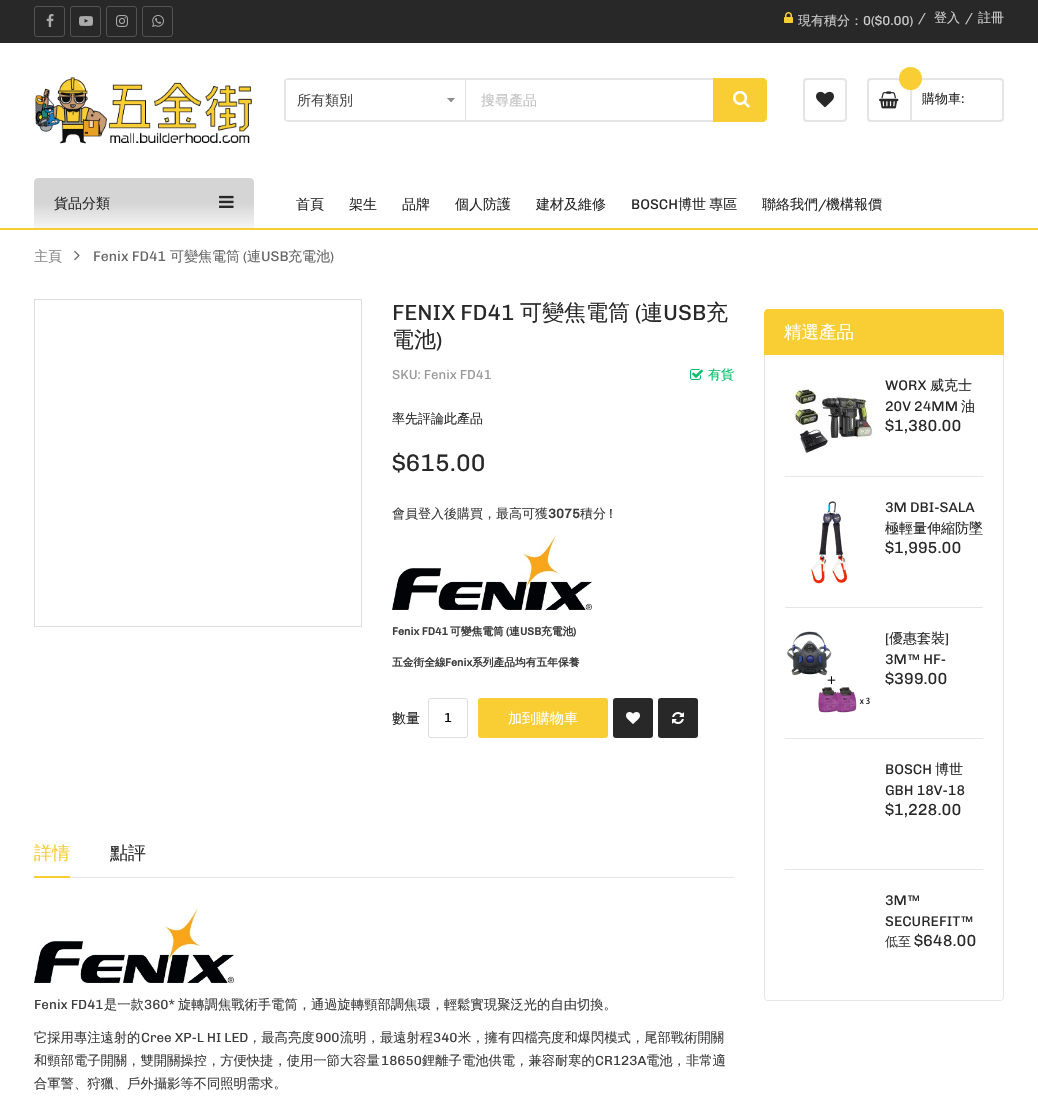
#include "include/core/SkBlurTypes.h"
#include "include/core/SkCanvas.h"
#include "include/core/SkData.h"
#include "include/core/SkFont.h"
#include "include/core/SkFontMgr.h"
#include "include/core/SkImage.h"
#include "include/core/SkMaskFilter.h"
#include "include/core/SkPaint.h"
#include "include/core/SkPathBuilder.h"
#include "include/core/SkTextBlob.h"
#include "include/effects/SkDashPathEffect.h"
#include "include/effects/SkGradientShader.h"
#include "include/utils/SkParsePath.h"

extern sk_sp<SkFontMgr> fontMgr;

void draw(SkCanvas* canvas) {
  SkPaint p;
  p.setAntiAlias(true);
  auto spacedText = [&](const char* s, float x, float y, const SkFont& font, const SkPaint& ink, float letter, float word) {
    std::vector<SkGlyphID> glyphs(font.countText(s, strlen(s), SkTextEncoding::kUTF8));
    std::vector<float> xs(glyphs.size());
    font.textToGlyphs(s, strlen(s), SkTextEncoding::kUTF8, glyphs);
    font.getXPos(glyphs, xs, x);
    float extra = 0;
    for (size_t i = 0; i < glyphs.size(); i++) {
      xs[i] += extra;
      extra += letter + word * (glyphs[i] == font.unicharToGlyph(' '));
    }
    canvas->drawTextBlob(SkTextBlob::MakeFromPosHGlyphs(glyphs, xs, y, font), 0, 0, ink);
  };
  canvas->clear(SK_ColorWHITE);
  p.setColor(SkColorSetRGB(249, 206, 52));
  canvas->drawRect(SkRect::MakeLTRB(0, 228, 1038, 230), p);
  p.setColor(SkColorSetRGB(40, 40, 40));
  canvas->drawRect(SkRect::MakeLTRB(0, 0, 1038, 43), p);
  p.setStyle(SkPaint::kStroke_Style);
  p.setStrokeWidth(1);
  p.setColor(SkColorSetRGB(83, 83, 83));
  canvas->drawRoundRect(SkRect::MakeLTRB(34.5f, 6.5f, 64.5f, 36.5f), 2.5f, 2.5f, p);
  canvas->drawImageRect(SkImages::DeferredFromEncodedData(SkData::MakeFromFileName("images/1.png")), SkRect::MakeLTRB(46, 14, 54, 27), SkSamplingOptions());
  canvas->drawRoundRect(SkRect::MakeLTRB(70.5f, 6.5f, 100.5f, 36.5f), 2.5f, 2.5f, p);
  canvas->drawImageRect(SkImages::DeferredFromEncodedData(SkData::MakeFromFileName("images/2.png")), SkRect::MakeLTRB(79, 16, 93, 26), SkSamplingOptions());
  canvas->drawRoundRect(SkRect::MakeLTRB(106.5f, 6.5f, 136.5f, 36.5f), 2.5f, 2.5f, p);
  canvas->drawImageRect(SkImages::DeferredFromEncodedData(SkData::MakeFromFileName("images/3.png")), SkRect::MakeLTRB(116, 15, 128, 27), SkSamplingOptions());
  canvas->drawRoundRect(SkRect::MakeLTRB(142.5f, 6.5f, 172.5f, 36.5f), 2.5f, 2.5f, p);
  canvas->drawImageRect(SkImages::DeferredFromEncodedData(SkData::MakeFromFileName("images/4.png")), SkRect::MakeLTRB(152, 15, 164, 27), SkSamplingOptions());
  canvas->drawImageRect(SkImages::DeferredFromEncodedData(SkData::MakeFromFileName("images/5.png")), SkRect::MakeLTRB(784, 12, 793, 23), SkSamplingOptions());
  canvas->drawImageRect(SkImages::DeferredFromEncodedData(SkData::MakeFromFileName("images/6.png")), SkRect::MakeLTRB(35, 77, 252, 144), SkSamplingOptions());
  p.setStrokeWidth(2);
  p.setColor(SkColorSetRGB(229, 229, 229));
  canvas->drawPath(SkPathBuilder().moveTo(288, 79).lineTo(714, 79).lineTo(714, 121).lineTo(288, 121).cubicTo(286.5f, 121, 285, 119.5f, 285, 118).lineTo(285, 82).cubicTo(285, 80.5f, 286.5f, 79, 288, 79).close().detach(), p);
  p.setStyle(SkPaint::kFill_Style);
  p.setColor(SK_ColorWHITE);
  canvas->drawRect(SkRect::MakeLTRB(286, 80, 288, 120), p);
  canvas->drawImageRect(SkImages::DeferredFromEncodedData(SkData::MakeFromFileName("images/7.png")), SkRect::MakeLTRB(447, 98, 455, 102), SkSamplingOptions());
  p.setColor(SkColorSetRGB(229, 229, 229));
  canvas->drawRect(SkRect::MakeLTRB(465, 80, 466, 120), p);
  p.setColor(SkColorSetRGB(249, 206, 52));
  canvas->drawPath(SkPathBuilder().moveTo(713, 78).lineTo(763, 78).cubicTo(765, 78, 767, 80, 767, 82).lineTo(767, 118).cubicTo(767, 120, 765, 122, 763, 122).lineTo(713, 122).close().detach(), p);
  canvas->drawImageRect(SkImages::DeferredFromEncodedData(SkData::MakeFromFileName("images/8.png")), SkRect::MakeLTRB(733, 90, 750, 108), SkSamplingOptions());
  p.setStyle(SkPaint::kStroke_Style);
  p.setColor(SkColorSetRGB(229, 229, 229));
  canvas->drawRoundRect(SkRect::MakeLTRB(804, 79, 846, 121), 3, 3, p);
  canvas->drawImageRect(SkImages::DeferredFromEncodedData(SkData::MakeFromFileName("images/9.png")), SkRect::MakeLTRB(816, 91, 834, 108), SkSamplingOptions());
  canvas->drawRoundRect(SkRect::MakeLTRB(868, 79, 1003, 121), 3, 3, p);
  p.setStyle(SkPaint::kFill_Style);
  canvas->drawRect(SkRect::MakeLTRB(910, 89, 912, 122), p);
  p.setColor(SkColorSetRGB(249, 206, 52));
  canvas->drawCircle(910.5f, 78.5f, 11.5f, p);
  canvas->drawImageRect(SkImages::DeferredFromEncodedData(SkData::MakeFromFileName("images/10.png")), SkRect::MakeLTRB(879, 91, 899, 109), SkSamplingOptions());
  {
    const SkColor colors[] = {SkColorSetRGB(213, 213, 213), SkColorSetRGB(245, 245, 245)};
    const float stops[] = {0.5f, 1};
    const SkPoint ends[] = {{144, 178}, {144, 228}};
    p.setShader(SkGradientShader::MakeLinear(ends, colors, stops, 2, SkTileMode::kClamp));
    p.setAlpha(255);
  }
  canvas->drawPath(SkPathBuilder().moveTo(38, 178).lineTo(250, 178).cubicTo(252, 178, 254, 180, 254, 182).lineTo(254, 228).lineTo(34, 228).lineTo(34, 182).cubicTo(34, 180, 36, 178, 38, 178).close().detach(), p);
  canvas->drawImageRect(SkImages::DeferredFromEncodedData(SkData::MakeFromFileName("images/11.png")), SkRect::MakeLTRB(219, 195, 234, 208), SkSamplingOptions());
  canvas->drawImageRect(SkImages::DeferredFromEncodedData(SkData::MakeFromFileName("images/12.png")), SkRect::MakeLTRB(74, 250, 80, 261), SkSamplingOptions());
  p.setStyle(SkPaint::kStroke_Style);
  p.setStrokeWidth(1);
  p.setShader(nullptr);
  p.setColor(SkColorSetRGB(221, 221, 221));
  canvas->drawRect(SkRect::MakeLTRB(34.5f, 299.5f, 361.5f, 626.5f), p);
  canvas->drawImageRect(SkImages::DeferredFromEncodedData(SkData::MakeFromFileName("images/13.png")), SkRect::MakeLTRB(690, 369, 703, 380), SkSamplingOptions());
  canvas->drawImageRect(SkImages::DeferredFromEncodedData(SkData::MakeFromFileName("images/14.png")), SkRect::MakeLTRB(392, 535, 592, 610), SkSamplingOptions());
  canvas->drawRoundRect(SkRect::MakeLTRB(428.5f, 698.5f, 467.5f, 737.5f), 2.5f, 2.5f, p);
  p.setStyle(SkPaint::kFill_Style);
  p.setColor(SkColorSetRGB(249, 206, 52));
  canvas->drawRoundRect(SkRect::MakeLTRB(478, 698, 608, 738), 3, 3, p);
  p.setColor(SkColorSetRGB(40, 40, 40));
  canvas->drawRoundRect(SkRect::MakeLTRB(613, 698, 653, 738), 3, 3, p);
  canvas->drawImageRect(SkImages::DeferredFromEncodedData(SkData::MakeFromFileName("images/15.png")), SkRect::MakeLTRB(626, 712, 640, 724), SkSamplingOptions());
  canvas->drawRoundRect(SkRect::MakeLTRB(658, 698, 698, 738), 3, 3, p);
  canvas->drawImageRect(SkImages::DeferredFromEncodedData(SkData::MakeFromFileName("images/16.png")), SkRect::MakeLTRB(672, 712, 684, 724), SkSamplingOptions());
  p.setColor(SkColorSetRGB(249, 206, 52));
  canvas->drawRect(SkRect::MakeLTRB(34, 876, 70, 878), p);
  p.setColor(SkColorSetRGB(229, 229, 229));
  canvas->drawRect(SkRect::MakeLTRB(70, 877, 734, 878), p);
  canvas->drawImageRect(SkImages::DeferredFromEncodedData(SkData::MakeFromFileName("images/17.png")), SkRect::MakeLTRB(34, 908, 234, 983), SkSamplingOptions());
  p.setColor(SkColorSetRGB(249, 206, 52));
  canvas->drawPath(SkPathBuilder().moveTo(768, 309).lineTo(1000, 309).cubicTo(1002, 309, 1004, 311, 1004, 313).lineTo(1004, 355).lineTo(764, 355).lineTo(764, 313).cubicTo(764, 311, 766, 309, 768, 309).close().detach(), p);
  p.setColor(SkColorSetRGB(229, 229, 229));
  canvas->drawPath(SkPathBuilder(SkPathFillType::kEvenOdd).moveTo(764, 355).lineTo(1004, 355).lineTo(1004, 997).cubicTo(1004, 999, 1002, 1001, 1000, 1001).lineTo(768, 1001).cubicTo(766, 1001, 764, 999, 764, 997).close().moveTo(765, 355).lineTo(1003, 355).lineTo(1003, 997).cubicTo(1003, 999, 1002, 1000, 1000, 1000).lineTo(768, 1000).cubicTo(766, 1000, 765, 999, 765, 997).close().detach(), p);
  canvas->drawRect(SkRect::MakeLTRB(785, 476, 983, 477), p);
  canvas->drawImageRect(SkImages::DeferredFromEncodedData(SkData::MakeFromFileName("images/18.png")), SkRect::MakeLTRB(785, 388, 875, 454), SkSamplingOptions());
  canvas->drawRect(SkRect::MakeLTRB(785, 607, 983, 608), p);
  canvas->drawImageRect(SkImages::DeferredFromEncodedData(SkData::MakeFromFileName("images/19.png")), SkRect::MakeLTRB(811, 501, 848, 584), SkSamplingOptions());
  canvas->drawRect(SkRect::MakeLTRB(785, 738, 983, 739), p);
  canvas->drawImageRect(SkImages::DeferredFromEncodedData(SkData::MakeFromFileName("images/20.png")), SkRect::MakeLTRB(787, 631, 870, 713), SkSamplingOptions());
  canvas->drawRect(SkRect::MakeLTRB(785, 869, 983, 870), p);
  SkFont font1(fontMgr->matchFamilyStyle("WenQuanYi Zen Hei", SkFontStyle(500, SkFontStyle::kNormal_Width, SkFontStyle::kUpright_Slant)), 13);
  font1.setSubpixel(true);
  p.setColor(SkColorSetRGB(204, 204, 204));
  canvas->drawString("現有積分：", 798, 25, font1, p);
  SkFont font2(fontMgr->matchFamilyStyle("Chivo", SkFontStyle(500, SkFontStyle::kNormal_Width, SkFontStyle::kUpright_Slant)), 13);
  font2.setSubpixel(true);
  canvas->drawString("0($0.00)", 863, 25, font2, p);
  canvas->drawString("/", 918, 22, font2, p);
  canvas->drawString("登入", 934, 22, font1, p);
  canvas->drawString("/", 965, 22, font2, p);
  canvas->drawString("註冊", 978, 22, font1, p);
  SkFont font3(fontMgr->matchFamilyStyle("WenQuanYi Zen Hei", SkFontStyle(500, SkFontStyle::kNormal_Width, SkFontStyle::kUpright_Slant)), 14);
  font3.setSubpixel(true);
  p.setColor(SkColorSetRGB(72, 72, 72));
  canvas->drawString("所有類別", 297, 105, font3, p);
  p.setColor(SkColorSetRGB(194, 194, 194));
  canvas->drawString("搜尋產品", 481, 105, font3, p);
  p.setColor(SkColorSetRGB(40, 40, 40));
  canvas->drawString("購物車", 922, 103, font1, p);
  canvas->drawString(":", 961, 103, font2, p);
  canvas->drawString("貨品分類", 54, 208, font3, p);
  canvas->drawString("首頁", 296, 209, font3, p);
  canvas->drawString("架生", 349, 209, font3, p);
  canvas->drawString("品牌", 402, 209, font3, p);
  canvas->drawString("個人防護", 455, 209, font3, p);
  canvas->drawString("建材及維修", 536, 209, font3, p);
  SkFont font4(fontMgr->matchFamilyStyle("Chivo", SkFontStyle(500, SkFontStyle::kNormal_Width, SkFontStyle::kUpright_Slant)), 14);
  font4.setSubpixel(true);
  canvas->drawString("BOSCH", 631, 209, font4, p);
  spacedText("博世 專區", 678, 209, font3, p, 0, -1);
  canvas->drawString("聯絡我們", 762, 209, font3, p);
  canvas->drawString("/", 818, 209, font4, p);
  canvas->drawString("機構報價", 826, 209, font3, p);
  p.setColor(SkColorSetRGB(136, 136, 136));
  canvas->drawString("主頁", 34, 261, font3, p);
  p.setColor(SkColorSetRGB(102, 102, 102));
  canvas->drawString("Fenix FD41", 93, 261, font4, p);
  canvas->drawString("可變焦電筒", 170, 261, font3, p);
  canvas->drawString("(", 243, 261, font4, p);
  canvas->drawString("連", 247, 261, font3, p);
  canvas->drawString("USB", 261, 261, font4, p);
  canvas->drawString("充電池", 288, 261, font3, p);
  canvas->drawString(")", 330, 261, font4, p);
  SkFont font5(fontMgr->matchFamilyStyle("Chivo", SkFontStyle(500, SkFontStyle::kNormal_Width, SkFontStyle::kUpright_Slant)), 22);
  font5.setSubpixel(true);
  p.setColor(SkColorSetRGB(40, 40, 40));
  canvas->drawString("FENIX FD41", 392, 320, font5, p);
  SkFont font6(fontMgr->matchFamilyStyle("WenQuanYi Zen Hei", SkFontStyle(500, SkFontStyle::kNormal_Width, SkFontStyle::kUpright_Slant)), 22);
  font6.setSubpixel(true);
  canvas->drawString("可變焦電筒", 520, 320, font6, p);
  canvas->drawString("(", 635, 320, font5, p);
  canvas->drawString("連", 641, 320, font6, p);
  canvas->drawString("USB", 663, 320, font5, p);
  canvas->drawString("充", 706, 320, font6, p);
  canvas->drawString("電池", 392, 347, font6, p);
  canvas->drawString(")", 436, 347, font5, p);
  p.setColor(SkColorSetRGB(153, 153, 153));
  canvas->drawString("SKU: Fenix FD41", 392, 379, font2, p);
  p.setColor(SkColorSetRGB(0, 191, 103));
  canvas->drawString("有貨", 708, 379, font1, p);
  p.setColor(SkColorSetRGB(40, 40, 40));
  canvas->drawString("率先評論此產品", 392, 423, font1, p);
  SkFont font7(fontMgr->matchFamilyStyle("Chivo", SkFontStyle(500, SkFontStyle::kNormal_Width, SkFontStyle::kUpright_Slant)), 24);
  font7.setSubpixel(true);
  canvas->drawString("$615.00", 392, 471, font7, p);
  p.setColor(SkColorSetRGB(60, 60, 60));
  canvas->drawString("會員登入後購買，最高可獲", 392, 518, font1, p);
  SkFont font8(fontMgr->matchFamilyStyle("Chivo", SkFontStyle::Bold()), 13);
  font8.setSubpixel(true);
  canvas->drawString("3075", 548, 518, font8, p);
  canvas->drawString("積分", 580, 518, font1, p);
  canvas->drawString("!", 609, 518, font2, p);
  SkFont font9(fontMgr->matchFamilyStyle("Chivo", SkFontStyle::Bold()), 10.75f);
  font9.setSubpixel(true);
  canvas->drawString("Fenix FD41", 392, 635, font9, p);
  SkFont font10(fontMgr->matchFamilyStyle("WenQuanYi Zen Hei", SkFontStyle::Bold()), 10.75f);
  font10.setSubpixel(true);
  canvas->drawString("可變焦電筒", 450, 635, font10, p);
  canvas->drawString("(", 506, 635, font9, p);
  canvas->drawString("連", 509, 635, font10, p);
  canvas->drawString("USB", 520, 635, font9, p);
  canvas->drawString("充電池", 541, 635, font10, p);
  canvas->drawString(")", 573, 635, font9, p);
  canvas->drawString("五金街全線", 392, 666, font10, p);
  canvas->drawString("Fenix", 445, 666, font9, p);
  canvas->drawString("系列產品均有五年保養", 472, 666, font10, p);
  p.setColor(SkColorSetRGB(40, 40, 40));
  canvas->drawString("數量", 392, 723, font3, p);
  p.setColor(SK_ColorBLACK);
  canvas->drawString("1", 444, 722, font2, p);
  p.setColor(SK_ColorWHITE);
  canvas->drawString("加到購物車", 508, 723, font3, p);
  SkFont font11(fontMgr->matchFamilyStyle("WenQuanYi Zen Hei", SkFontStyle(500, SkFontStyle::kNormal_Width, SkFontStyle::kUpright_Slant)), 18);
  font11.setSubpixel(true);
  p.setColor(SkColorSetRGB(249, 206, 52));
  canvas->drawString("詳情", 34, 859, font11, p);
  p.setColor(SkColorSetRGB(40, 40, 40));
  canvas->drawString("點評", 110, 859, font11, p);
  SkFont font12(fontMgr->matchFamilyStyle("Chivo", SkFontStyle(500, SkFontStyle::kNormal_Width, SkFontStyle::kUpright_Slant)), 13.3f);
  font12.setSubpixel(true);
  p.setColor(SkColorSetRGB(60, 60, 60));
  canvas->drawString("Fenix FD41", 34, 1009, font12, p);
  SkFont font13(fontMgr->matchFamilyStyle("WenQuanYi Zen Hei", SkFontStyle(500, SkFontStyle::kNormal_Width, SkFontStyle::kUpright_Slant)), 13.3f);
  font13.setSubpixel(true);
  canvas->drawString("是一款", 104, 1009, font13, p);
  canvas->drawString("360*", 144, 1009, font12, p);
  canvas->drawString("旋轉調焦戰術手電筒，通過旋轉頸部調焦環，輕鬆實現聚泛光的自由切換。", 178, 1009, font13, p);
  canvas->drawString("它採用專注遠射的", 34, 1042, font13, p);
  canvas->drawString("Cree XP-L HI LED", 141, 1042, font12, p);
  canvas->drawString("，最高亮度", 248, 1042, font13, p);
  canvas->drawString("900", 315, 1042, font12, p);
  canvas->drawString("流明，最遠射程", 340, 1042, font13, p);
  canvas->drawString("340", 433, 1042, font12, p);
  canvas->drawString("米，擁有四檔亮度和爆閃模式，尾部戰術開關", 458, 1042, font13, p);
  canvas->drawString("和頸部電子開關，雙開關操控，方便快捷，使用一節大容量", 34, 1065, font13, p);
  canvas->drawString("18650", 381, 1065, font12, p);
  canvas->drawString("鋰離子電池供電，兼容耐寒的", 422, 1065, font13, p);
  canvas->drawString("CR123A", 595, 1065, font12, p);
  canvas->drawString("電池，非常適", 646, 1065, font13, p);
  canvas->drawString("合軍警、狩獵、戶外攝影等不同照明需求。", 34, 1088, font13, p);
  SkFont font14(fontMgr->matchFamilyStyle("WenQuanYi Zen Hei", SkFontStyle(500, SkFontStyle::kNormal_Width, SkFontStyle::kUpright_Slant)), 17.5f);
  font14.setSubpixel(true);
  p.setColor(SK_ColorWHITE);
  canvas->drawString("精選產品", 784, 338, font14, p);
  p.setColor(SkColorSetRGB(40, 40, 40));
  canvas->drawString("WORX", 885, 390, font4, p);
  canvas->drawString("威克士", 930, 390, font3, p);
  canvas->drawString("20V 24MM", 885, 411, font4, p);
  canvas->drawString("油", 961, 411, font3, p);
  SkFont font15(fontMgr->matchFamilyStyle("Chivo", SkFontStyle(500, SkFontStyle::kNormal_Width, SkFontStyle::kUpright_Slant)), 16);
  font15.setSubpixel(true);
  canvas->drawString("$1,380.00", 885, 431, font15, p);
  canvas->drawString("3M DBI-SALA", 885, 512, font4, p);
  canvas->drawString("極輕量伸縮防墜", 885, 533, font3, p);
  canvas->drawString("$1,995.00", 885, 553, font15, p);
  canvas->drawString("[", 885, 643, font4, p);
  canvas->drawString("優惠套裝", 889, 643, font3, p);
  canvas->drawString("]", 945, 643, font4, p);
  canvas->drawString("3M™ HF-", 885, 664, font4, p);
  canvas->drawString("$399.00", 885, 684, font15, p);
  canvas->drawString("BOSCH", 885, 774, font4, p);
  canvas->drawString("博世", 935, 774, font3, p);
  canvas->drawString("GBH 18V-18", 885, 795, font4, p);
  canvas->drawString("$1,228.00", 885, 815, font15, p);
  canvas->drawString("3M™", 885, 905, font4, p);
  canvas->drawString("SECUREFIT™", 885, 926, font4, p);
  p.setColor(SkColorSetRGB(60, 60, 60));
  canvas->drawString("低至", 885, 946, font1, p);
  p.setColor(SkColorSetRGB(40, 40, 40));
  canvas->drawString("$648.00", 914, 946, font15, p);
}
